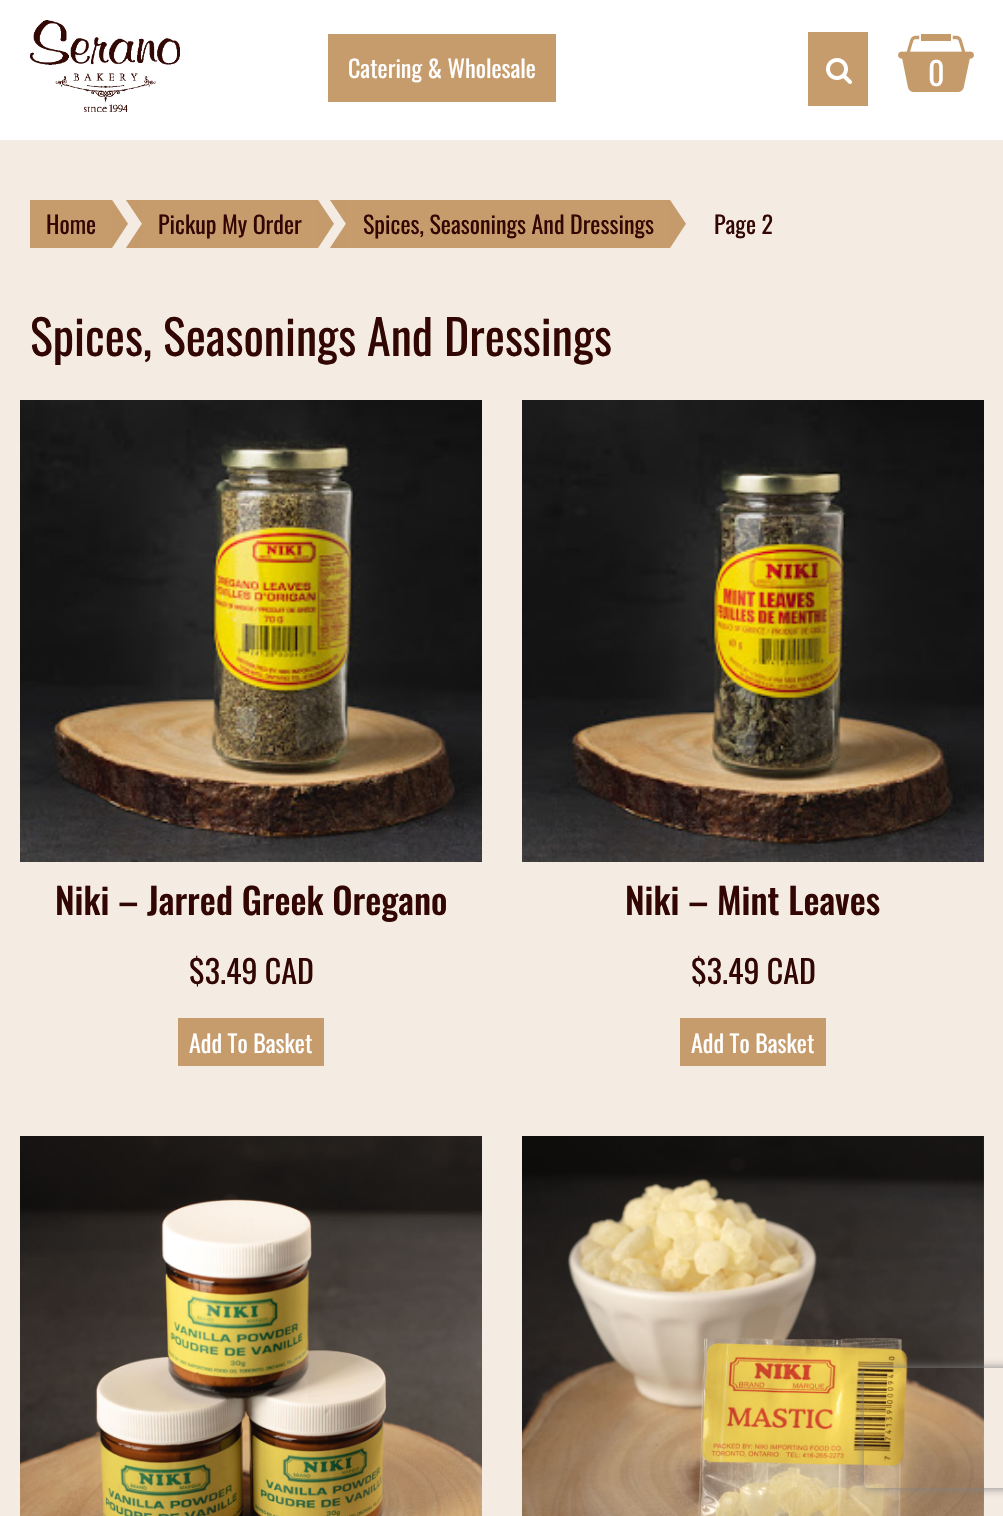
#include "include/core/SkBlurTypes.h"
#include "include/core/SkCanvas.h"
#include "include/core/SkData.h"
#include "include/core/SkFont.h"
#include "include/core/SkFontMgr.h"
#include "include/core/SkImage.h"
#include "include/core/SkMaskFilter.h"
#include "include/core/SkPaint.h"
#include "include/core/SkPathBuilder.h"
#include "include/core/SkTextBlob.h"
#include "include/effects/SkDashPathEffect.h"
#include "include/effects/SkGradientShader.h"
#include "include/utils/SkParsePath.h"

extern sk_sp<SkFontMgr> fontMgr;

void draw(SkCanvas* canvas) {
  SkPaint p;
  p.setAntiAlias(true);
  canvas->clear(SK_ColorWHITE);
  canvas->drawImageRect(SkImages::DeferredFromEncodedData(SkData::MakeFromFileName("images/1.png")), SkRect::MakeLTRB(30, 20, 180, 112), SkSamplingOptions());
  p.setColor(SkColorSetRGB(199, 156, 109));
  canvas->drawRect(SkRect::MakeLTRB(328, 34, 556, 102), p);
  canvas->drawRect(SkRect::MakeLTRB(808, 32, 868, 106), p);
  canvas->drawImageRect(SkImages::DeferredFromEncodedData(SkData::MakeFromFileName("images/2.png")), SkRect::MakeLTRB(826, 58, 852, 84), SkSamplingOptions());
  canvas->drawImageRect(SkImages::DeferredFromEncodedData(SkData::MakeFromFileName("images/3.png")), SkRect::MakeLTRB(898, 34, 974, 92), SkSamplingOptions());
  p.setColor(SkColorSetRGB(244, 235, 226));
  canvas->drawRect(SkRect::MakeLTRB(0, 140, 1003, 1516), p);
  p.setColor(SkColorSetRGB(199, 156, 109));
  canvas->drawRect(SkRect::MakeLTRB(30, 200, 112, 248), p);
  canvas->drawImageRect(SkImages::DeferredFromEncodedData(SkData::MakeFromFileName("images/4.png")), SkRect::MakeLTRB(112, 200, 128, 248), SkSamplingOptions());
  canvas->drawRect(SkRect::MakeLTRB(142, 200, 318, 248), p);
  canvas->drawImageRect(SkImages::DeferredFromEncodedData(SkData::MakeFromFileName("images/5.png")), SkRect::MakeLTRB(126, 200, 142, 248), SkSamplingOptions());
  canvas->drawImageRect(SkImages::DeferredFromEncodedData(SkData::MakeFromFileName("images/4.png")), SkRect::MakeLTRB(318, 200, 334, 248), SkSamplingOptions());
  canvas->drawRect(SkRect::MakeLTRB(346, 200, 670, 248), p);
  canvas->drawImageRect(SkImages::DeferredFromEncodedData(SkData::MakeFromFileName("images/6.png")), SkRect::MakeLTRB(330, 200, 346, 248), SkSamplingOptions());
  canvas->drawImageRect(SkImages::DeferredFromEncodedData(SkData::MakeFromFileName("images/4.png")), SkRect::MakeLTRB(670, 200, 686, 248), SkSamplingOptions());
  canvas->drawImageRect(SkImages::DeferredFromEncodedData(SkData::MakeFromFileName("images/7.png")), SkRect::MakeLTRB(20, 400, 482, 862), SkSamplingOptions());
  canvas->drawRect(SkRect::MakeLTRB(178, 1018, 324, 1066), p);
  canvas->drawImageRect(SkImages::DeferredFromEncodedData(SkData::MakeFromFileName("images/8.png")), SkRect::MakeLTRB(522, 400, 984, 862), SkSamplingOptions());
  canvas->drawRect(SkRect::MakeLTRB(680, 1018, 826, 1066), p);
  canvas->drawImageRect(SkImages::DeferredFromEncodedData(SkData::MakeFromFileName("images/9.png")), SkRect::MakeLTRB(20, 1136, 482, 1516), SkSamplingOptions());
  canvas->drawImageRect(SkImages::DeferredFromEncodedData(SkData::MakeFromFileName("images/10.png")), SkRect::MakeLTRB(522, 1136, 984, 1516), SkSamplingOptions());
  canvas->save();
  canvas->clipPath(SkPathBuilder(SkPathFillType::kEvenOdd).moveTo(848, 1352).lineTo(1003, 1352).lineTo(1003, 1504).lineTo(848, 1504).close().moveTo(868, 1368).lineTo(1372, 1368).cubicTo(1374, 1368, 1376, 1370, 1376, 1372).lineTo(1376, 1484).cubicTo(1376, 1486, 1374, 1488, 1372, 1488).lineTo(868, 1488).cubicTo(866, 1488, 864, 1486, 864, 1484).lineTo(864, 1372).cubicTo(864, 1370, 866, 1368, 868, 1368).close().detach(), true);
  p.setColor(SkColorSetRGB(128, 128, 128));
  p.setMaskFilter(SkMaskFilter::MakeBlur(kNormal_SkBlurStyle, 5));
  canvas->drawRoundRect(SkRect::MakeLTRB(864, 1368, 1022, 1488), 4, 4, p);
  p.setMaskFilter(nullptr);
  canvas->restore();
  SkFont font1(fontMgr->matchFamilyStyle("Oswald", SkFontStyle::Normal()), 24);
  font1.setSubpixel(true);
  p.setColor(SK_ColorWHITE);
  canvas->drawString("Catering & Wholesale", 348, 78, font1, p);
  SkFont font2(fontMgr->matchFamilyStyle("Oswald", SkFontStyle::Normal()), 32);
  font2.setSubpixel(true);
  canvas->drawString("0", 928, 86, font2, p);
  p.setColor(SkColorSetRGB(50, 7, 3));
  canvas->drawString("Home", 46, 234, font1, p);
  canvas->drawString("Pickup My Order", 158, 234, font1, p);
  canvas->drawString("Spices, Seasonings And Dressings", 363, 234, font1, p);
  canvas->drawString("Page 2", 714, 234, font1, p);
  SkFont font3(fontMgr->matchFamilyStyle("Oswald", SkFontStyle::Normal()), 48);
  font3.setSubpixel(true);
  canvas->drawString("Spices, Seasonings And Dressings", 30, 356, font3, p);
  SkFont font4(fontMgr->matchFamilyStyle("Oswald", SkFontStyle(500, SkFontStyle::kNormal_Width, SkFontStyle::kUpright_Slant)), 36);
  font4.setSubpixel(true);
  canvas->drawString("Niki – Jarred Greek Oregano", 55, 915, font4, p);
  canvas->drawString("$3.49 CAD", 189, 984, font2, p);
  p.setColor(SK_ColorWHITE);
  canvas->drawString("Add To Basket", 189, 1053, font1, p);
  p.setColor(SkColorSetRGB(50, 7, 3));
  canvas->drawString("Niki – Mint Leaves", 625, 915, font4, p);
  canvas->drawString("$3.49 CAD", 691, 984, font2, p);
  p.setColor(SK_ColorWHITE);
  canvas->drawString("Add To Basket", 691, 1053, font1, p);
}
